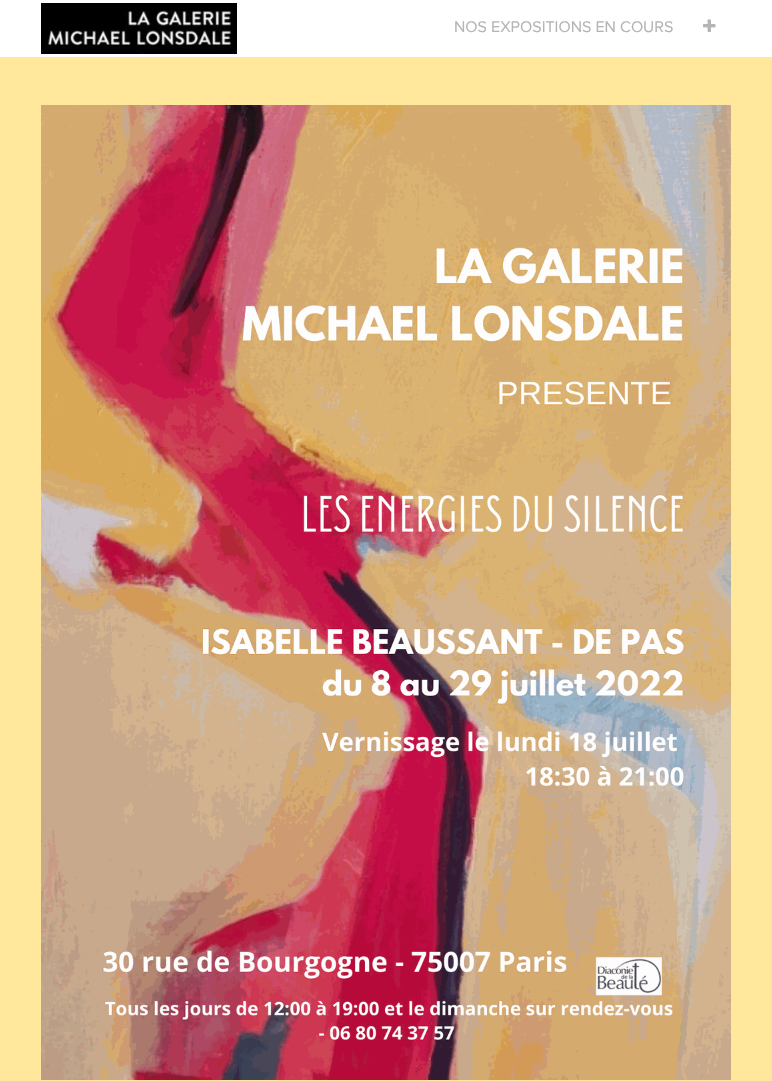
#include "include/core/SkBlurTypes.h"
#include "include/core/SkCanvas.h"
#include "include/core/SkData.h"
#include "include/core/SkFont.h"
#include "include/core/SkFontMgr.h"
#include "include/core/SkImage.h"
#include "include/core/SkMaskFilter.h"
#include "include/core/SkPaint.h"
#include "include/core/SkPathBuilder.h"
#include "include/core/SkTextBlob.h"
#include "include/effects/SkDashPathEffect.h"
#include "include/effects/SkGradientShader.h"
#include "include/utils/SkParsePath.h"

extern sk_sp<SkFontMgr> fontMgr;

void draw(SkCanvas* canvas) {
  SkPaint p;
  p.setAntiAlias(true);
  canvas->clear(SkColorSetRGB(255, 231, 156));
  p.setColor(SK_ColorWHITE);
  canvas->drawRect(SkRect::MakeLTRB(0, 0, 772, 57), p);
  canvas->drawImageRect(SkImages::DeferredFromEncodedData(SkData::MakeFromFileName("images/1.png")), SkRect::MakeLTRB(41, 3, 237, 54), SkSamplingOptions());
  canvas->drawImageRect(SkImages::DeferredFromEncodedData(SkData::MakeFromFileName("images/2.png")), SkRect::MakeLTRB(703, 19, 716, 32), SkSamplingOptions());
  canvas->drawImageRect(SkImages::DeferredFromEncodedData(SkData::MakeFromFileName("images/3.png")), SkRect::MakeLTRB(41, 105, 731, 1080), SkSamplingOptions());
  SkFont font1(fontMgr->matchFamilyStyle("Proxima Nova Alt", SkFontStyle::Normal()), 16);
  font1.setSubpixel(true);
  p.setColor(SkColorSetRGB(181, 181, 181));
  canvas->drawString("NOS EXPOSITIONS EN COURS", 454, 32, font1, p);
}
